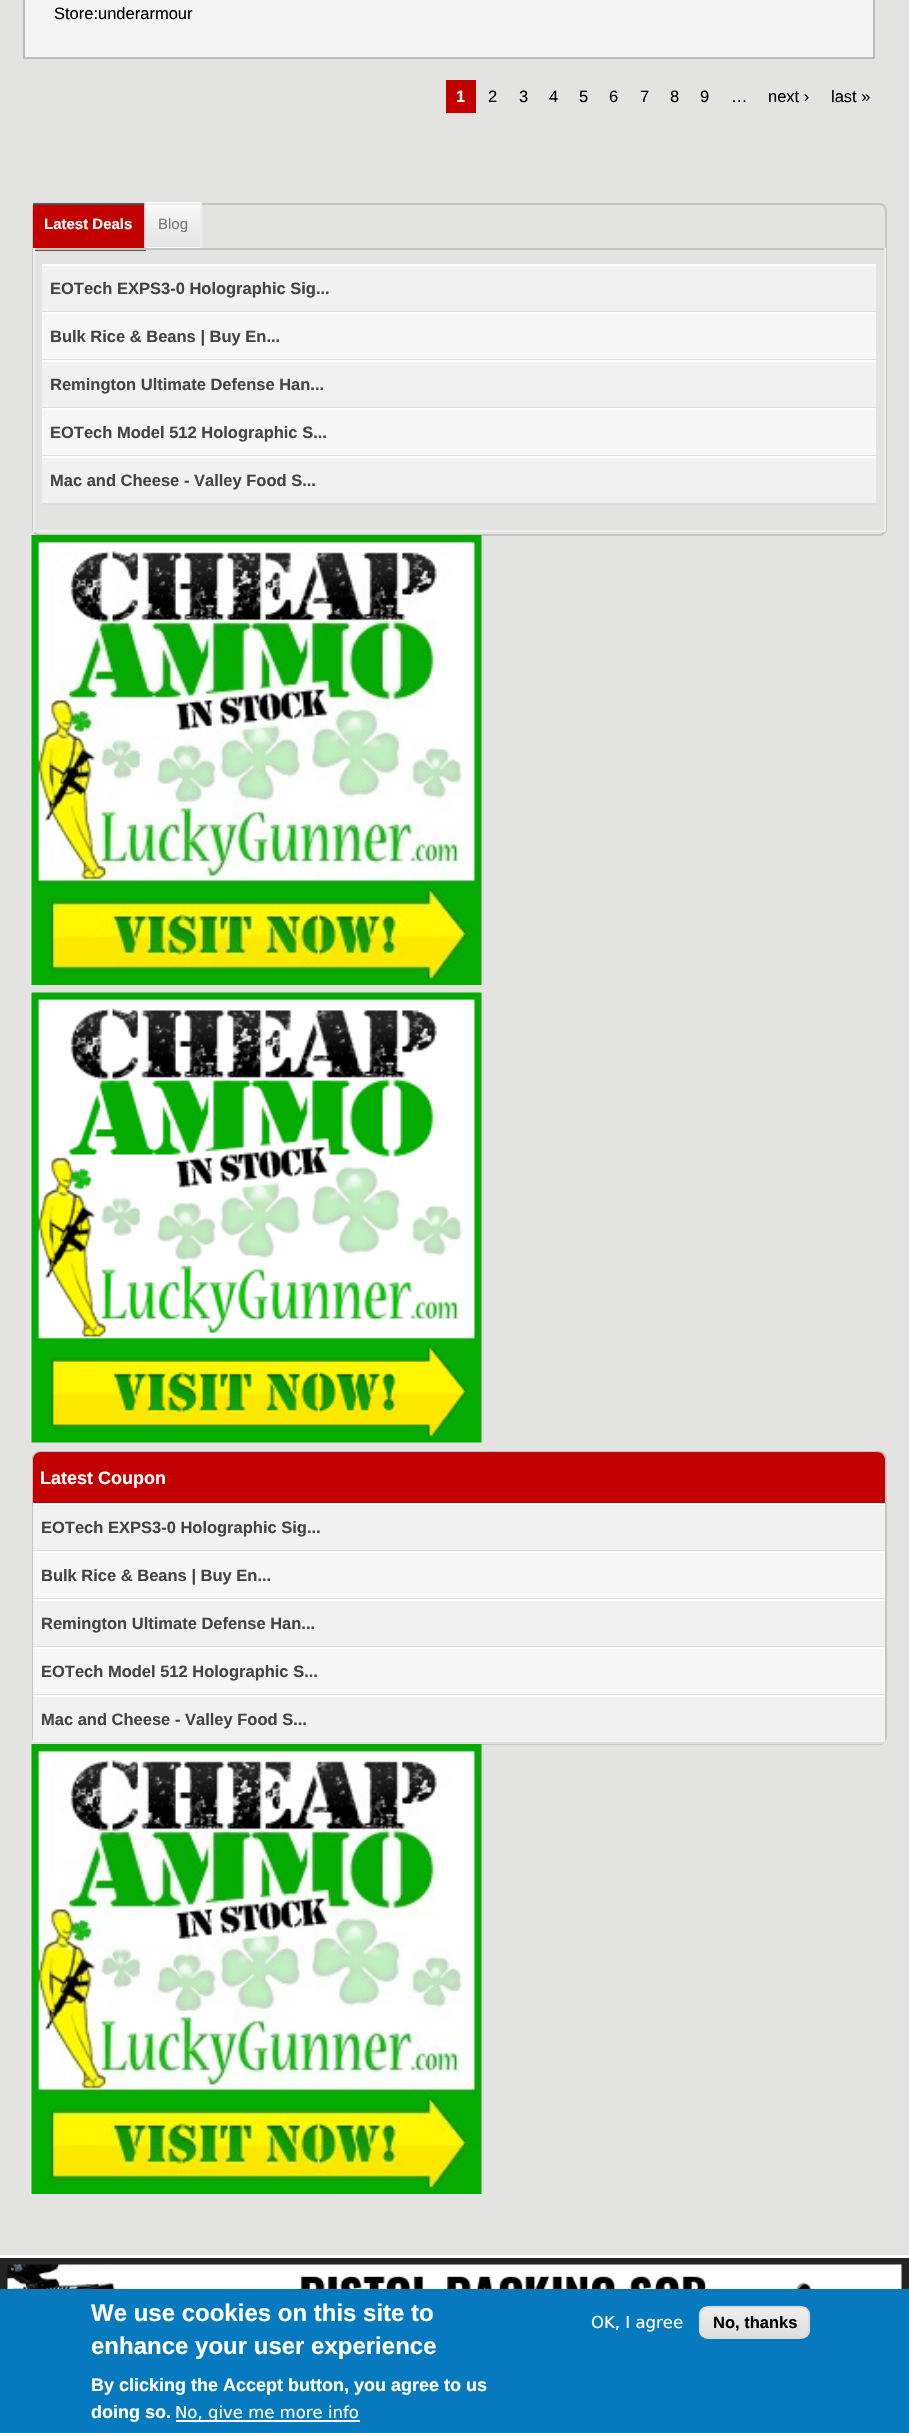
#include "include/core/SkBlurTypes.h"
#include "include/core/SkCanvas.h"
#include "include/core/SkData.h"
#include "include/core/SkFont.h"
#include "include/core/SkFontMgr.h"
#include "include/core/SkImage.h"
#include "include/core/SkMaskFilter.h"
#include "include/core/SkPaint.h"
#include "include/core/SkPathBuilder.h"
#include "include/core/SkTextBlob.h"
#include "include/effects/SkDashPathEffect.h"
#include "include/effects/SkGradientShader.h"
#include "include/utils/SkParsePath.h"

extern sk_sp<SkFontMgr> fontMgr;

void draw(SkCanvas* canvas) {
  SkPaint p;
  p.setAntiAlias(true);
  canvas->clear(SK_ColorWHITE);
  p.setColor(SkColorSetRGB(227, 227, 226));
  canvas->drawRect(SkRect::MakeLTRB(0, 0, 909, 2255), p);
  p.setColor(SkColorSetRGB(244, 244, 244));
  canvas->drawRect(SkRect::MakeLTRB(24, -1, 874, 58), p);
  p.setStyle(SkPaint::kStroke_Style);
  p.setStrokeWidth(2);
  p.setColor(SkColorSetRGB(187, 187, 187));
  canvas->drawRect(SkRect::MakeLTRB(24, -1, 874, 58), p);
  p.setStyle(SkPaint::kFill_Style);
  p.setColor(SkColorSetRGB(194, 0, 0));
  canvas->drawRect(SkRect::MakeLTRB(446, 80, 476, 113), p);
  p.setStyle(SkPaint::kStroke_Style);
  p.setColor(SkColorSetRGB(196, 196, 196));
  canvas->drawRoundRect(SkRect::MakeLTRB(33, 204, 886, 535), 7, 7, p);
  p.setStyle(SkPaint::kFill_Style);
  p.setColor(SkColorSetRGB(194, 0, 0));
  canvas->drawRect(SkRect::MakeLTRB(33, 205, 144, 248), p);
  p.setColor(SkColorSetRGB(85, 85, 85));
  canvas->drawRect(SkRect::MakeLTRB(33, 203, 146, 205), p);
  p.setColor(SkColorSetRGB(204, 204, 204));
  canvas->drawRect(SkRect::MakeLTRB(144, 203, 146, 251), p);
  p.setColor(SkColorSetRGB(85, 85, 85));
  canvas->drawRect(SkRect::MakeLTRB(33, 250, 146, 251), p);
  p.setColor(SK_ColorWHITE);
  canvas->drawRect(SkRect::MakeLTRB(146, 247, 200, 248), p);
  canvas->drawImageRect(SkImages::DeferredFromEncodedData(SkData::MakeFromFileName("images/1.png")), SkRect::MakeLTRB(145, 202, 201, 247), SkSamplingOptions());
  p.setColor(SkColorSetRGB(238, 238, 238));
  canvas->drawRect(SkRect::MakeLTRB(146, 203, 201, 205), p);
  canvas->drawRect(SkRect::MakeLTRB(200, 203, 202, 248), p);
  p.setColor(SkColorSetRGB(196, 196, 196));
  canvas->drawRect(SkRect::MakeLTRB(33, 248, 885, 250), p);
  p.setColor(SkColorSetRGB(238, 238, 238));
  canvas->drawRect(SkRect::MakeLTRB(884, 248, 886, 531), p);
  canvas->drawRect(SkRect::MakeLTRB(33, 530, 885, 532), p);
  canvas->drawRect(SkRect::MakeLTRB(33, 248, 35, 531), p);
  p.setColor(SkColorSetRGB(241, 241, 241));
  canvas->drawRect(SkRect::MakeLTRB(42, 266, 876, 311), p);
  p.setColor(SK_ColorWHITE);
  canvas->drawRect(SkRect::MakeLTRB(42, 264, 876, 266), p);
  p.setColor(SkColorSetRGB(222, 222, 222));
  canvas->drawRect(SkRect::MakeLTRB(42, 311, 876, 312), p);
  p.setColor(SkColorSetRGB(247, 247, 247));
  canvas->drawRect(SkRect::MakeLTRB(42, 314, 876, 359), p);
  p.setColor(SK_ColorWHITE);
  canvas->drawRect(SkRect::MakeLTRB(42, 312, 876, 314), p);
  p.setColor(SkColorSetRGB(222, 222, 222));
  canvas->drawRect(SkRect::MakeLTRB(42, 359, 876, 360), p);
  p.setColor(SkColorSetRGB(241, 241, 241));
  canvas->drawRect(SkRect::MakeLTRB(42, 362, 876, 407), p);
  p.setColor(SK_ColorWHITE);
  canvas->drawRect(SkRect::MakeLTRB(42, 360, 876, 362), p);
  p.setColor(SkColorSetRGB(222, 222, 222));
  canvas->drawRect(SkRect::MakeLTRB(42, 407, 876, 408), p);
  p.setColor(SkColorSetRGB(247, 247, 247));
  canvas->drawRect(SkRect::MakeLTRB(42, 410, 876, 455), p);
  p.setColor(SK_ColorWHITE);
  canvas->drawRect(SkRect::MakeLTRB(42, 408, 876, 410), p);
  p.setColor(SkColorSetRGB(222, 222, 222));
  canvas->drawRect(SkRect::MakeLTRB(42, 455, 876, 456), p);
  p.setColor(SkColorSetRGB(241, 241, 241));
  canvas->drawRect(SkRect::MakeLTRB(42, 458, 876, 503), p);
  p.setColor(SK_ColorWHITE);
  canvas->drawRect(SkRect::MakeLTRB(42, 456, 876, 458), p);
  p.setColor(SkColorSetRGB(222, 222, 222));
  canvas->drawRect(SkRect::MakeLTRB(42, 503, 876, 505), p);
  canvas->drawImageRect(SkImages::DeferredFromEncodedData(SkData::MakeFromFileName("images/2.png")), SkRect::MakeLTRB(31, 535, 482, 985), SkSamplingOptions());
  canvas->drawImageRect(SkImages::DeferredFromEncodedData(SkData::MakeFromFileName("images/3.png")), SkRect::MakeLTRB(31, 992, 482, 1443), SkSamplingOptions());
  p.setStyle(SkPaint::kStroke_Style);
  p.setColor(SkColorSetRGB(196, 196, 196));
  canvas->drawRoundRect(SkRect::MakeLTRB(33, 1452, 886, 1744), 7, 7, p);
  p.setStyle(SkPaint::kFill_Style);
  p.setColor(SkColorSetRGB(194, 0, 0));
  canvas->drawPath(SkPathBuilder().moveTo(41, 1452).lineTo(877, 1452).cubicTo(881.5f, 1452, 885, 1455.5f, 885, 1460).lineTo(885, 1503).lineTo(33, 1503).lineTo(33, 1460).cubicTo(33, 1455.5f, 36.5f, 1452, 41, 1452).close().detach(), p);
  p.setColor(SkColorSetRGB(241, 241, 241));
  canvas->drawRect(SkRect::MakeLTRB(33, 1505, 885, 1550), p);
  p.setColor(SK_ColorWHITE);
  canvas->drawRect(SkRect::MakeLTRB(33, 1503, 885, 1505), p);
  p.setColor(SkColorSetRGB(222, 222, 222));
  canvas->drawRect(SkRect::MakeLTRB(33, 1550, 885, 1551), p);
  p.setColor(SkColorSetRGB(247, 247, 247));
  canvas->drawRect(SkRect::MakeLTRB(33, 1553, 885, 1598), p);
  p.setColor(SK_ColorWHITE);
  canvas->drawRect(SkRect::MakeLTRB(33, 1551, 885, 1553), p);
  p.setColor(SkColorSetRGB(222, 222, 222));
  canvas->drawRect(SkRect::MakeLTRB(33, 1598, 885, 1599), p);
  p.setColor(SkColorSetRGB(241, 241, 241));
  canvas->drawRect(SkRect::MakeLTRB(33, 1601, 885, 1646), p);
  p.setColor(SK_ColorWHITE);
  canvas->drawRect(SkRect::MakeLTRB(33, 1599, 885, 1601), p);
  p.setColor(SkColorSetRGB(222, 222, 222));
  canvas->drawRect(SkRect::MakeLTRB(33, 1646, 885, 1647), p);
  p.setColor(SkColorSetRGB(247, 247, 247));
  canvas->drawRect(SkRect::MakeLTRB(33, 1649, 885, 1694), p);
  p.setColor(SK_ColorWHITE);
  canvas->drawRect(SkRect::MakeLTRB(33, 1647, 885, 1649), p);
  p.setColor(SkColorSetRGB(222, 222, 222));
  canvas->drawRect(SkRect::MakeLTRB(33, 1694, 885, 1695), p);
  p.setColor(SkColorSetRGB(241, 241, 241));
  canvas->drawRect(SkRect::MakeLTRB(33, 1697, 885, 1742), p);
  p.setColor(SK_ColorWHITE);
  canvas->drawRect(SkRect::MakeLTRB(33, 1695, 885, 1697), p);
  p.setColor(SkColorSetRGB(222, 222, 222));
  canvas->drawRect(SkRect::MakeLTRB(33, 1742, 885, 1744), p);
  canvas->drawImageRect(SkImages::DeferredFromEncodedData(SkData::MakeFromFileName("images/4.png")), SkRect::MakeLTRB(31, 1744, 482, 2194), SkSamplingOptions());
  p.setColor(SkColorSetRGB(35, 35, 35));
  canvas->drawRect(SkRect::MakeLTRB(0, 2258, 909, 2289), p);
  canvas->drawImageRect(SkImages::DeferredFromEncodedData(SkData::MakeFromFileName("images/5.png")), SkRect::MakeLTRB(7, 2264, 902, 2289), SkSamplingOptions());
  p.setColor(SkColorSetRGB(7, 121, 191));
  canvas->drawRect(SkRect::MakeLTRB(0, 2289, 909, 2433), p);
  p.setColor(SK_ColorWHITE);
  canvas->drawRect(SkRect::MakeLTRB(176, 2420, 360, 2422), p);
  canvas->save();
  canvas->clipPath(SkPathBuilder().moveTo(708, 2306).lineTo(801, 2306).cubicTo(806, 2306, 810, 2310, 810, 2315).lineTo(810, 2330).cubicTo(810, 2335, 806, 2339, 801, 2339).lineTo(708, 2339).cubicTo(703, 2339, 699, 2335, 699, 2330).lineTo(699, 2315).cubicTo(699, 2310, 703, 2306, 708, 2306).close().detach(), true);
  {
    const SkColor colors[] = {SkColorSetRGB(237, 237, 237), SkColorSetRGB(223, 223, 223)};
    const float stops[] = {0.05f, 1};
    const SkPoint ends[] = {{755, 2307}, {755, 2337}};
    p.setShader(SkGradientShader::MakeLinear(ends, colors, stops, 2, SkTileMode::kClamp));
    p.setAlpha(255);
  }
  canvas->drawRect(SkRect::MakeLTRB(699, 2307, 810, 2337), p);
  canvas->restore();
  p.setShader(nullptr);
  p.setColor(SK_ColorWHITE);
  canvas->drawPath(SkPathBuilder().moveTo(708, 2308).lineTo(801, 2308).cubicTo(805, 2308, 808, 2312, 808, 2316).lineTo(808, 2331).lineTo(808, 2334).cubicTo(808, 2332, 809, 2331, 809, 2329).lineTo(809, 2315).cubicTo(809, 2311, 805, 2307, 801, 2307).lineTo(709, 2307).cubicTo(706, 2307, 704, 2309, 702, 2311).cubicTo(704, 2309, 706, 2308, 708, 2308).close().detach(), p);
  p.setStyle(SkPaint::kStroke_Style);
  p.setColor(SkColorSetRGB(220, 220, 220));
  canvas->drawRoundRect(SkRect::MakeLTRB(700, 2307, 809, 2338), 8, 8, p);
  SkFont font1(fontMgr->matchFamilyStyle("Liberation Sans", SkFontStyle::Normal()), 16.5f);
  font1.setSubpixel(true);
  p.setStyle(SkPaint::kFill_Style);
  p.setColor(SK_ColorBLACK);
  canvas->drawString("Store:underarmour", 54, 19, font1, p);
  SkFont font2(fontMgr->matchFamilyStyle("Liberation Sans", SkFontStyle::Bold()), 16.5f);
  font2.setSubpixel(true);
  p.setColor(SK_ColorWHITE);
  canvas->drawString("1", 456, 102, font2, p);
  p.setColor(SK_ColorBLACK);
  canvas->drawString("2", 488, 102, font1, p);
  canvas->drawString("3", 519, 102, font1, p);
  canvas->drawString("4", 549, 102, font1, p);
  canvas->drawString("5", 579, 102, font1, p);
  canvas->drawString("6", 609, 102, font1, p);
  canvas->drawString("7", 640, 102, font1, p);
  canvas->drawString("8", 670, 102, font1, p);
  canvas->drawString("9", 700, 102, font1, p);
  canvas->drawString("…", 731, 102, font1, p);
  canvas->drawString("next ›", 768, 102, font1, p);
  canvas->drawString("last »", 831, 102, font1, p);
  SkFont font3(fontMgr->matchFamilyStyle("Liberation Sans", SkFontStyle::Bold()), 15);
  font3.setSubpixel(true);
  p.setColor(SK_ColorWHITE);
  canvas->drawString("Latest Deals", 44, 229, font3, p);
  SkFont font4(fontMgr->matchFamilyStyle("Liberation Sans", SkFontStyle::Normal()), 15);
  font4.setSubpixel(true);
  p.setColor(SkColorSetRGB(119, 119, 119));
  canvas->drawString("Blog", 158, 229, font4, p);
  p.setColor(SkColorSetRGB(68, 68, 68));
  canvas->drawString("EOTech EXPS3-0 Holographic Sig...", 50, 294, font2, p);
  canvas->drawString("Bulk Rice & Beans | Buy En...", 50, 342, font2, p);
  canvas->drawString("Remington Ultimate Defense Han...", 50, 390, font2, p);
  canvas->drawString("EOTech Model 512 Holographic S...", 50, 438, font2, p);
  canvas->drawString("Mac and Cheese - Valley Food S...", 50, 486, font2, p);
  SkFont font5(fontMgr->matchFamilyStyle("Liberation Sans", SkFontStyle::Bold()), 18);
  font5.setSubpixel(true);
  p.setColor(SK_ColorWHITE);
  canvas->drawString("Latest Coupon", 40, 1484, font5, p);
  p.setColor(SkColorSetRGB(68, 68, 68));
  canvas->drawString("EOTech EXPS3-0 Holographic Sig...", 41, 1533, font2, p);
  canvas->drawString("Bulk Rice & Beans | Buy En...", 41, 1581, font2, p);
  canvas->drawString("Remington Ultimate Defense Han...", 41, 1629, font2, p);
  canvas->drawString("EOTech Model 512 Holographic S...", 41, 1677, font2, p);
  canvas->drawString("Mac and Cheese - Valley Food S...", 41, 1725, font2, p);
  SkFont font6(fontMgr->matchFamilyStyle("Liberation Sans", SkFontStyle::Bold()), 24);
  font6.setSubpixel(true);
  p.setColor(SK_ColorWHITE);
  canvas->drawString("We use cookies on this site to", 91, 2321, font6, p);
  canvas->drawString("enhance your user experience", 91, 2354, font6, p);
  canvas->drawString("By clicking the Accept button, you agree to us", 91, 2391, font5, p);
  canvas->drawString("doing so.", 91, 2418, font5, p);
  SkFont font7(fontMgr->matchFamilyStyle("DejaVu Sans", SkFontStyle::Normal()), 16.5f);
  font7.setSubpixel(true);
  canvas->drawString("No, give me more info", 175, 2418, font7, p);
  canvas->drawString("OK, I agree", 591, 2328, font7, p);
  p.setColor(SK_ColorBLACK);
  canvas->drawString("No, thanks", 713, 2328, font2, p);
}
